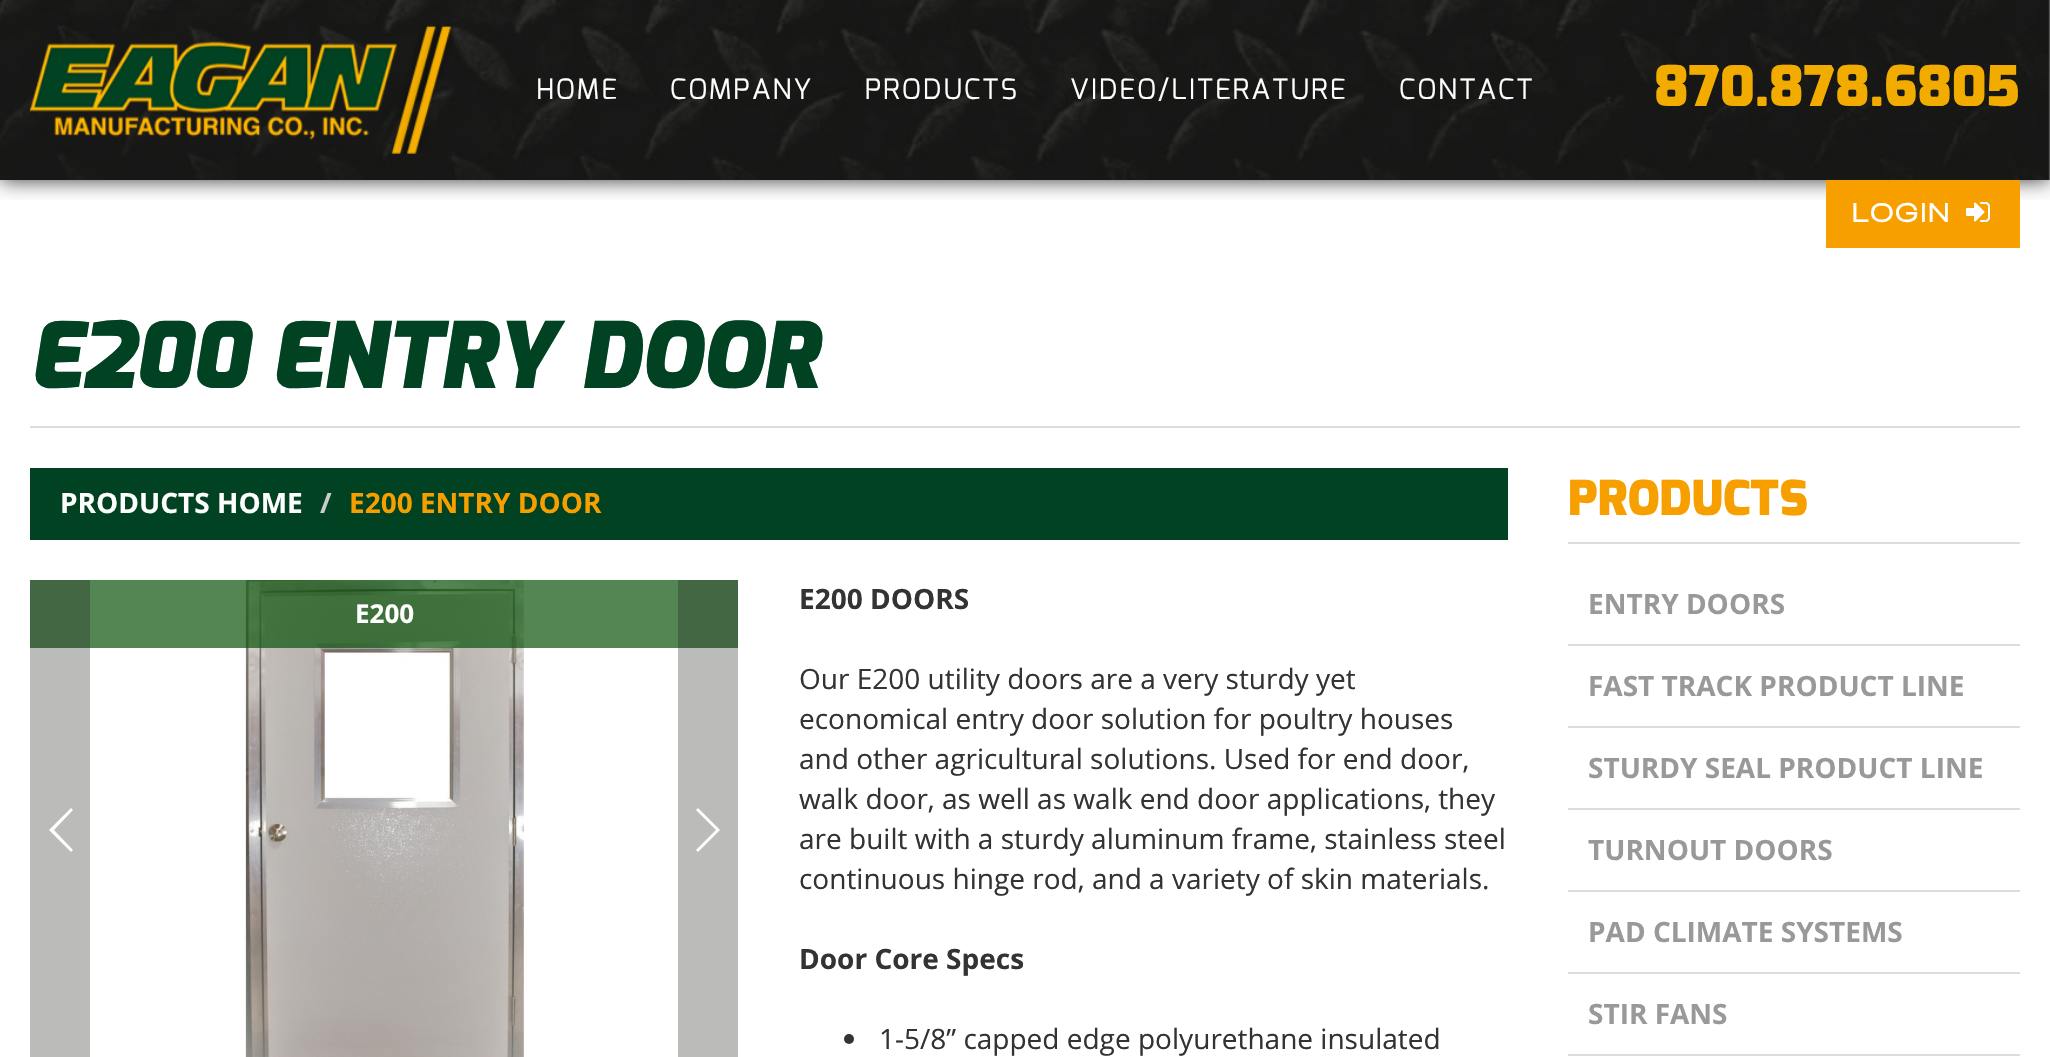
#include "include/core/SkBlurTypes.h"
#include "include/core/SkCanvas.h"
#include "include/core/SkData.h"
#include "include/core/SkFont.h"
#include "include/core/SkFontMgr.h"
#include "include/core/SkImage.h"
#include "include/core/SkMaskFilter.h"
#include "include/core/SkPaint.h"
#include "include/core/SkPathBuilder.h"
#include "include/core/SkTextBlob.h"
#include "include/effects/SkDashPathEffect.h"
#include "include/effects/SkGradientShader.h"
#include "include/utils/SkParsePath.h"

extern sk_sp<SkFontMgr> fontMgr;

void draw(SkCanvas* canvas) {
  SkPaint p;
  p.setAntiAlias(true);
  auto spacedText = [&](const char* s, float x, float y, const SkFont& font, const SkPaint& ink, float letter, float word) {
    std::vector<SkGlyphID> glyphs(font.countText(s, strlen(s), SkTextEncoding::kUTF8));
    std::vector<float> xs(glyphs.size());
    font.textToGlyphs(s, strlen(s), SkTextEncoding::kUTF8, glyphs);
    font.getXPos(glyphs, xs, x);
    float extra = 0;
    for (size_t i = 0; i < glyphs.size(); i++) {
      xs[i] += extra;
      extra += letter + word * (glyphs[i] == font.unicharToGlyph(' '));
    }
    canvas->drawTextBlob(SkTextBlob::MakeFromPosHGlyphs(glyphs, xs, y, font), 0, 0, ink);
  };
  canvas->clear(SK_ColorWHITE);
  canvas->save();
  canvas->clipRect(SkRect::MakeLTRB(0, 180, 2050, 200));
  p.setColor(SkColorSetARGB(204, 0, 0, 0));
  p.setMaskFilter(SkMaskFilter::MakeBlur(kNormal_SkBlurStyle, 10));
  canvas->drawRect(SkRect::MakeLTRB(0, 0, 2050, 180), p);
  p.setMaskFilter(nullptr);
  canvas->restore();
  canvas->drawImageRect(SkImages::DeferredFromEncodedData(SkData::MakeFromFileName("images/1.png")), SkRect::MakeLTRB(0, 0, 2050, 180), SkSamplingOptions());
  canvas->drawImageRect(SkImages::DeferredFromEncodedData(SkData::MakeFromFileName("images/2.png")), SkRect::MakeLTRB(30, 25, 454, 154), SkSamplingOptions());
  p.setColor(SkColorSetRGB(248, 159, 0));
  canvas->drawRect(SkRect::MakeLTRB(1826, 180, 2020, 248), p);
  canvas->drawImageRect(SkImages::DeferredFromEncodedData(SkData::MakeFromFileName("images/3.png")), SkRect::MakeLTRB(1966, 202, 1990, 222), SkSamplingOptions());
  p.setColor(SkColorSetRGB(221, 221, 221));
  canvas->drawRect(SkRect::MakeLTRB(30, 426, 2020, 428), p);
  p.setColor(SkColorSetRGB(0, 66, 34));
  canvas->drawRect(SkRect::MakeLTRB(30, 468, 1508, 540), p);
  canvas->drawImageRect(SkImages::DeferredFromEncodedData(SkData::MakeFromFileName("images/4.png")), SkRect::MakeLTRB(245, 580, 524, 1057), SkSamplingOptions());
  p.setColor(SkColorSetARGB(179, 10, 82, 10));
  canvas->drawRect(SkRect::MakeLTRB(30, 580, 738, 648), p);
  p.setColor(SkColorSetARGB(77, 29, 29, 28));
  canvas->drawRect(SkRect::MakeLTRB(30, 580, 90, 1057), p);
  p.setColor(SK_ColorWHITE);
  canvas->drawPath(SkPathBuilder().moveTo(49, 830).lineTo(71, 808).lineTo(73, 810).lineTo(54, 830).lineTo(73, 850).lineTo(71, 852).close().detach(), p);
  p.setColor(SkColorSetARGB(77, 29, 29, 28));
  canvas->drawRect(SkRect::MakeLTRB(678, 580, 738, 1057), p);
  p.setColor(SK_ColorWHITE);
  canvas->drawPath(SkPathBuilder().moveTo(698, 808).lineTo(720, 830).lineTo(698, 852).lineTo(696, 850).lineTo(716, 830).lineTo(696, 810).close().detach(), p);
  p.setColor(SkColorSetRGB(51, 51, 51));
  canvas->drawCircle(849, 1039, 5, p);
  p.setColor(SkColorSetRGB(221, 221, 221));
  canvas->drawRect(SkRect::MakeLTRB(1568, 542, 2020, 544), p);
  canvas->drawRect(SkRect::MakeLTRB(1568, 644, 2020, 646), p);
  canvas->drawRect(SkRect::MakeLTRB(1568, 726, 2020, 728), p);
  canvas->drawRect(SkRect::MakeLTRB(1568, 808, 2020, 810), p);
  canvas->drawRect(SkRect::MakeLTRB(1568, 890, 2020, 892), p);
  canvas->drawRect(SkRect::MakeLTRB(1568, 972, 2020, 974), p);
  canvas->drawRect(SkRect::MakeLTRB(1568, 1054, 2020, 1056), p);
  SkFont font1(fontMgr->matchFamilyStyle("Exo", SkFontStyle::Normal()), 28);
  font1.setSubpixel(true);
  p.setColor(SK_ColorWHITE);
  spacedText("HOME", 536, 99, font1, p, 2, 0);
  spacedText("COMPANY", 670, 99, font1, p, 2, 0);
  spacedText("PRODUCTS", 865, 99, font1, p, 2, 0);
  spacedText("VIDEO/LITERATURE", 1070, 99, font1, p, 2, 0);
  spacedText("CONTACT", 1399, 99, font1, p, 2, 0);
  SkFont font2(fontMgr->matchFamilyStyle("Exo", SkFontStyle(900, SkFontStyle::kNormal_Width, SkFontStyle::kUpright_Slant)), 56);
  font2.setSubpixel(true);
  p.setColor(SkColorSetRGB(242, 172, 0));
  canvas->drawString("870.878.6805", 1654, 106, font2, p);
  SkFont font3(fontMgr->matchFamilyStyle("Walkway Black", SkFontStyle(900, SkFontStyle::kNormal_Width, SkFontStyle::kUpright_Slant)), 28);
  font3.setSubpixel(true);
  p.setColor(SK_ColorWHITE);
  spacedText("LOGIN", 1853, 222, font3, p, 4, 0);
  SkFont font4(fontMgr->matchFamilyStyle("Exo", SkFontStyle(900, SkFontStyle::kNormal_Width, SkFontStyle::kItalic_Slant)), 92);
  font4.setSubpixel(true);
  p.setColor(SkColorSetRGB(0, 66, 34));
  canvas->drawString("E200 ENTRY DOOR", 30, 388, font4, p);
  SkFont font5(fontMgr->matchFamilyStyle("Open Sans", SkFontStyle::Bold()), 28);
  font5.setSubpixel(true);
  p.setColor(SK_ColorWHITE);
  canvas->drawString("PRODUCTS HOME", 60, 513, font5, p);
  p.setColor(SkColorSetRGB(204, 204, 204));
  canvas->drawString("/", 320, 513, font5, p);
  p.setColor(SkColorSetRGB(248, 159, 0));
  canvas->drawString("E200 ENTRY DOOR", 349, 513, font5, p);
  SkFont font6(fontMgr->matchFamilyStyle("Open Sans", SkFontStyle::Bold()), 26);
  font6.setSubpixel(true);
  p.setColor(SK_ColorWHITE);
  canvas->drawString("E200", 355, 623, font6, p);
  p.setColor(SkColorSetRGB(51, 51, 51));
  canvas->drawString("E200 DOORS", 799, 609, font5, p);
  SkFont font7(fontMgr->matchFamilyStyle("Open Sans", SkFontStyle::Normal()), 28);
  font7.setSubpixel(true);
  canvas->drawString("Our E200 utility doors are a very sturdy yet", 799, 689, font7, p);
  canvas->drawString("economical entry door solution for poultry houses", 799, 729, font7, p);
  canvas->drawString("and other agricultural solutions. Used for end door,", 799, 769, font7, p);
  canvas->drawString("walk door, as well as walk end door applications, they", 799, 809, font7, p);
  canvas->drawString("are built with a sturdy aluminum frame, stainless steel", 799, 849, font7, p);
  canvas->drawString("continuous hinge rod, and a variety of skin materials.", 799, 889, font7, p);
  canvas->drawString("Door Core Specs", 799, 969, font5, p);
  canvas->drawString("1-5/8” capped edge polyurethane insulated", 879, 1049, font7, p);
  SkFont font8(fontMgr->matchFamilyStyle("Exo", SkFontStyle(900, SkFontStyle::kNormal_Width, SkFontStyle::kUpright_Slant)), 48);
  font8.setSubpixel(true);
  p.setColor(SkColorSetRGB(248, 159, 0));
  canvas->drawString("PRODUCTS", 1568, 515, font8, p);
  p.setColor(SkColorSetRGB(153, 153, 153));
  canvas->drawString("ENTRY DOORS", 1588, 614, font5, p);
  canvas->drawString("FAST TRACK PRODUCT LINE", 1588, 696, font5, p);
  canvas->drawString("STURDY SEAL PRODUCT LINE", 1588, 778, font5, p);
  canvas->drawString("TURNOUT DOORS", 1588, 860, font5, p);
  canvas->drawString("PAD CLIMATE SYSTEMS", 1588, 942, font5, p);
  canvas->drawString("STIR FANS", 1588, 1024, font5, p);
}
